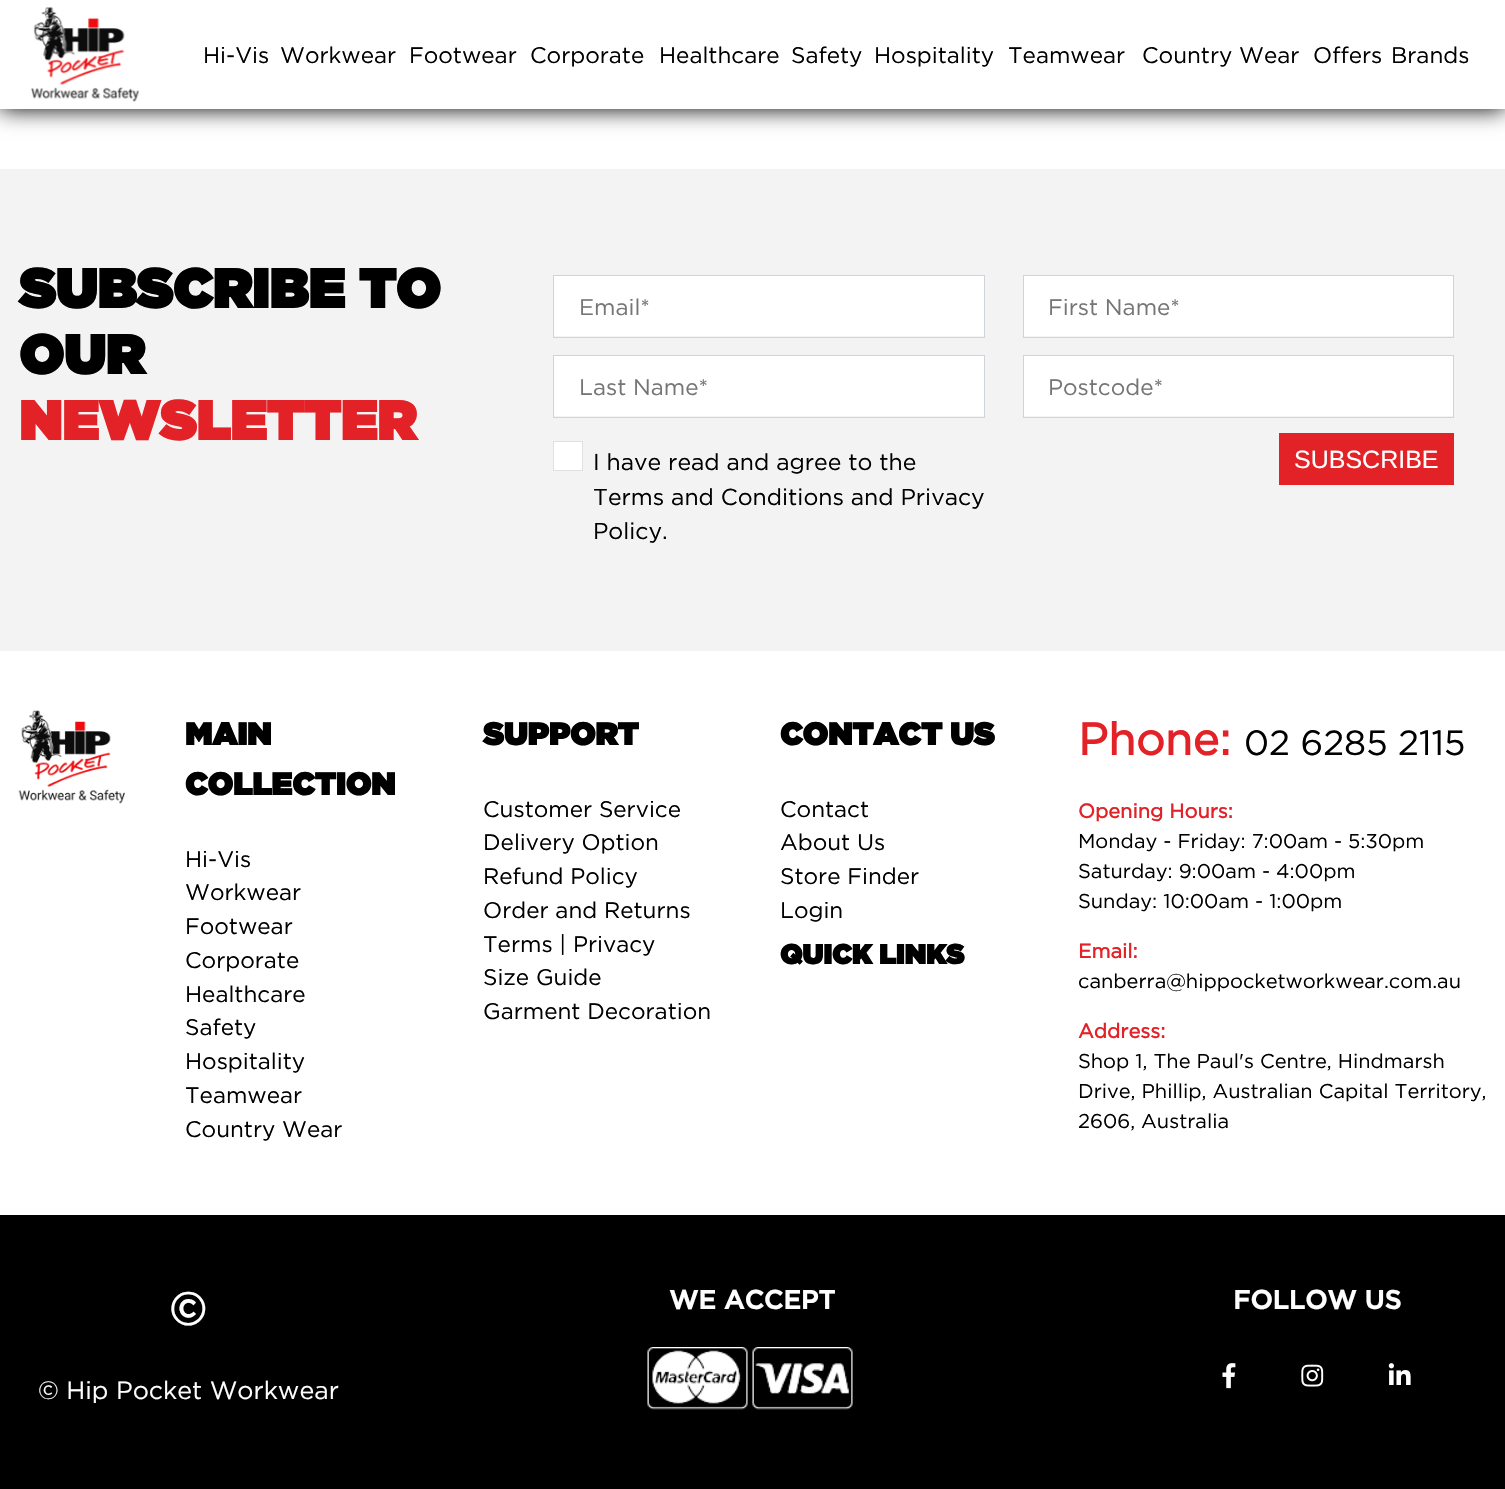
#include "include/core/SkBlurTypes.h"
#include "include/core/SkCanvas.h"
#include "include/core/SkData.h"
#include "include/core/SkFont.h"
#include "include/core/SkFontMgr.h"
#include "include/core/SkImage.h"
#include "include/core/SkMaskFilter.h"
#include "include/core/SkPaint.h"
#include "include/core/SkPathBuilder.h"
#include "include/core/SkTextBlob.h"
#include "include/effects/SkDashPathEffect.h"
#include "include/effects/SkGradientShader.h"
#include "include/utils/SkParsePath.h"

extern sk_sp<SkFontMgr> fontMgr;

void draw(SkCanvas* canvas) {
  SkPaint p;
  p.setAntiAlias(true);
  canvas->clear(SK_ColorWHITE);
  p.setColor(SK_ColorBLACK);
  p.setMaskFilter(SkMaskFilter::MakeBlur(kNormal_SkBlurStyle, 11));
  canvas->drawRect(SkRect::MakeLTRB(0, 0, 1505, 109), p);
  p.setMaskFilter(nullptr);
  p.setColor(SK_ColorWHITE);
  canvas->drawRect(SkRect::MakeLTRB(0, 0, 1505, 109), p);
  canvas->drawImageRect(SkImages::DeferredFromEncodedData(SkData::MakeFromFileName("images/1.png")), SkRect::MakeLTRB(31, 7, 139, 102), SkSamplingOptions());
  p.setColor(SkColorSetRGB(243, 243, 243));
  canvas->drawRect(SkRect::MakeLTRB(0, 169, 1505, 651), p);
  p.setColor(SK_ColorWHITE);
  canvas->drawRect(SkRect::MakeLTRB(554, 276, 984, 336), p);
  p.setStyle(SkPaint::kStroke_Style);
  p.setStrokeWidth(1);
  p.setColor(SkColorSetRGB(206, 212, 218));
  canvas->drawRect(SkRect::MakeLTRB(553.5f, 275.5f, 984.5f, 337.5f), p);
  p.setStyle(SkPaint::kFill_Style);
  p.setColor(SK_ColorWHITE);
  canvas->drawRect(SkRect::MakeLTRB(1024, 276, 1453, 336), p);
  p.setStyle(SkPaint::kStroke_Style);
  p.setColor(SkColorSetRGB(206, 212, 218));
  canvas->drawRect(SkRect::MakeLTRB(1023.5f, 275.5f, 1453.5f, 337.5f), p);
  p.setStyle(SkPaint::kFill_Style);
  p.setColor(SK_ColorWHITE);
  canvas->drawRect(SkRect::MakeLTRB(554, 356, 984, 416), p);
  p.setStyle(SkPaint::kStroke_Style);
  p.setColor(SkColorSetRGB(206, 212, 218));
  canvas->drawRect(SkRect::MakeLTRB(553.5f, 355.5f, 984.5f, 417.5f), p);
  p.setStyle(SkPaint::kFill_Style);
  p.setColor(SK_ColorWHITE);
  canvas->drawRect(SkRect::MakeLTRB(1024, 356, 1453, 416), p);
  p.setStyle(SkPaint::kStroke_Style);
  p.setColor(SkColorSetRGB(206, 212, 218));
  canvas->drawRect(SkRect::MakeLTRB(1023.5f, 355.5f, 1453.5f, 417.5f), p);
  p.setStyle(SkPaint::kFill_Style);
  p.setColor(SK_ColorWHITE);
  canvas->drawRect(SkRect::MakeLTRB(553.5f, 441.5f, 582.5f, 470.5f), p);
  p.setStyle(SkPaint::kStroke_Style);
  p.setColor(SkColorSetRGB(224, 224, 224));
  canvas->drawRect(SkRect::MakeLTRB(553.5f, 441.5f, 582.5f, 470.5f), p);
  p.setStyle(SkPaint::kFill_Style);
  p.setColor(SkColorSetRGB(227, 34, 39));
  canvas->drawRect(SkRect::MakeLTRB(1279, 433, 1454, 485), p);
  canvas->drawImageRect(SkImages::DeferredFromEncodedData(SkData::MakeFromFileName("images/2.png")), SkRect::MakeLTRB(18, 710, 125, 804), SkSamplingOptions());
  p.setColor(SK_ColorBLACK);
  canvas->drawRect(SkRect::MakeLTRB(0, 1215, 1505, 1489), p);
  canvas->drawImageRect(SkImages::DeferredFromEncodedData(SkData::MakeFromFileName("images/3.png")), SkRect::MakeLTRB(647, 1347, 748, 1410), SkSamplingOptions());
  canvas->drawImageRect(SkImages::DeferredFromEncodedData(SkData::MakeFromFileName("images/4.png")), SkRect::MakeLTRB(752, 1347, 853, 1410), SkSamplingOptions());
  canvas->drawImageRect(SkImages::DeferredFromEncodedData(SkData::MakeFromFileName("images/5.png")), SkRect::MakeLTRB(1222, 1363, 1236, 1389), SkSamplingOptions());
  canvas->drawImageRect(SkImages::DeferredFromEncodedData(SkData::MakeFromFileName("images/6.png")), SkRect::MakeLTRB(1301, 1364, 1324, 1387), SkSamplingOptions());
  canvas->drawImageRect(SkImages::DeferredFromEncodedData(SkData::MakeFromFileName("images/7.png")), SkRect::MakeLTRB(1388, 1363, 1411, 1385), SkSamplingOptions());
  SkFont font1(fontMgr->matchFamilyStyle("Gotham", SkFontStyle::Normal()), 22.5f);
  font1.setSubpixel(true);
  canvas->drawString("Hi-Vis", 203, 63, font1, p);
  canvas->drawString("Workwear", 280, 63, font1, p);
  canvas->drawString("Footwear", 409, 63, font1, p);
  canvas->drawString("Corporate", 530, 63, font1, p);
  canvas->drawString("Healthcare", 659, 63, font1, p);
  canvas->drawString("Safety", 791, 63, font1, p);
  canvas->drawString("Hospitality", 874, 63, font1, p);
  canvas->drawString("Teamwear", 1008, 63, font1, p);
  canvas->drawString("Country Wear", 1142, 63, font1, p);
  canvas->drawString("Offers", 1313, 63, font1, p);
  canvas->drawString("Brands", 1391, 63, font1, p);
  SkFont font2(fontMgr->matchFamilyStyle("Gotham", SkFontStyle::Bold()), 55);
  font2.setSubpixel(true);
  canvas->drawString("SUBSCRIBE TO", 19, 308, font2, p);
  canvas->drawString("OUR", 19, 374, font2, p);
  p.setColor(SkColorSetRGB(227, 34, 39));
  canvas->drawString("NEWSLETTER", 19, 440, font2, p);
  p.setColor(SkColorSetRGB(117, 117, 117));
  canvas->drawString("Email*", 579, 315, font1, p);
  canvas->drawString("First Name*", 1048, 315, font1, p);
  canvas->drawString("Last Name*", 579, 395, font1, p);
  canvas->drawString("Postcode*", 1048, 395, font1, p);
  SkFont font3(fontMgr->matchFamilyStyle("Gotham", SkFontStyle::Normal()), 23);
  font3.setSubpixel(true);
  p.setColor(SK_ColorBLACK);
  canvas->drawString("I have read and agree to the", 593, 470, font3, p);
  canvas->drawString("Terms and Conditions and Privacy", 593, 505, font3, p);
  canvas->drawString("Policy.", 593, 539, font3, p);
  SkFont font4(fontMgr->matchFamilyStyle("Liberation Sans", SkFontStyle::Normal()), 25);
  font4.setSubpixel(true);
  p.setColor(SK_ColorWHITE);
  canvas->drawString("SUBSCRIBE", 1294, 468, font4, p);
  SkFont font5(fontMgr->matchFamilyStyle("Gotham", SkFontStyle::Bold()), 31.25f);
  font5.setSubpixel(true);
  p.setColor(SK_ColorBLACK);
  canvas->drawString("MAIN", 185, 745, font5, p);
  canvas->drawString("COLLECTION", 185, 795, font5, p);
  canvas->drawString("Hi-Vis", 185, 867, font1, p);
  canvas->drawString("Workwear", 185, 900, font1, p);
  canvas->drawString("Footwear", 185, 934, font1, p);
  canvas->drawString("Corporate", 185, 968, font1, p);
  canvas->drawString("Healthcare", 185, 1002, font1, p);
  canvas->drawString("Safety", 185, 1035, font1, p);
  canvas->drawString("Hospitality", 185, 1069, font1, p);
  canvas->drawString("Teamwear", 185, 1103, font1, p);
  canvas->drawString("Country Wear", 185, 1137, font1, p);
  canvas->drawString("SUPPORT", 483, 745, font5, p);
  canvas->drawString("Customer Service", 483, 817, font1, p);
  canvas->drawString("Delivery Option", 483, 850, font1, p);
  canvas->drawString("Refund Policy", 483, 884, font1, p);
  canvas->drawString("Order and Returns", 483, 918, font1, p);
  canvas->drawString("Terms | Privacy", 483, 952, font1, p);
  canvas->drawString("Size Guide", 483, 985, font1, p);
  canvas->drawString("Garment Decoration", 483, 1019, font1, p);
  canvas->drawString("CONTACT US", 780, 745, font5, p);
  canvas->drawString("Contact", 780, 817, font1, p);
  canvas->drawString("About Us", 780, 850, font1, p);
  canvas->drawString("Store Finder", 780, 884, font1, p);
  canvas->drawString("Login", 780, 918, font1, p);
  SkFont font6(fontMgr->matchFamilyStyle("Gotham", SkFontStyle::Bold()), 27.5f);
  font6.setSubpixel(true);
  canvas->drawString("QUICK LINKS", 780, 964, font6, p);
  SkFont font7(fontMgr->matchFamilyStyle("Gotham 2", SkFontStyle::Bold()), 45);
  font7.setSubpixel(true);
  p.setColor(SkColorSetRGB(227, 34, 39));
  canvas->drawString("Phone:", 1078, 755, font7, p);
  SkFont font8(fontMgr->matchFamilyStyle("Gotham", SkFontStyle::Normal()), 35);
  font8.setSubpixel(true);
  p.setColor(SK_ColorBLACK);
  canvas->drawString("02 6285 2115", 1244, 755, font8, p);
  SkFont font9(fontMgr->matchFamilyStyle("Gotham 2", SkFontStyle::Bold()), 20);
  font9.setSubpixel(true);
  p.setColor(SkColorSetRGB(227, 34, 39));
  canvas->drawString("Opening Hours:", 1078, 818, font9, p);
  SkFont font10(fontMgr->matchFamilyStyle("Gotham", SkFontStyle::Normal()), 20);
  font10.setSubpixel(true);
  p.setColor(SK_ColorBLACK);
  canvas->drawString("Monday - Friday: 7:00am - 5:30pm", 1078, 848, font10, p);
  canvas->drawString("Saturday: 9:00am - 4:00pm", 1078, 878, font10, p);
  canvas->drawString("Sunday: 10:00am - 1:00pm", 1078, 908, font10, p);
  p.setColor(SkColorSetRGB(227, 34, 39));
  canvas->drawString("Email:", 1078, 958, font9, p);
  p.setColor(SK_ColorBLACK);
  canvas->drawString("canberra@hippocketworkwear.com.au", 1078, 988, font10, p);
  p.setColor(SkColorSetRGB(227, 34, 39));
  canvas->drawString("Address:", 1078, 1038, font9, p);
  p.setColor(SK_ColorBLACK);
  canvas->drawString("Shop 1, The Paul's Centre, Hindmarsh", 1078, 1068, font10, p);
  canvas->drawString("Drive, Phillip, Australian Capital Territory,", 1078, 1098, font10, p);
  canvas->drawString("2606, Australia", 1078, 1128, font10, p);
  p.setColor(SK_ColorWHITE);
  canvas->drawString("©", 169, 1325, font7, p);
  SkFont font11(fontMgr->matchFamilyStyle("Gotham", SkFontStyle::Normal()), 25);
  font11.setSubpixel(true);
  canvas->drawString("© Hip Pocket Workwear", 38, 1399, font11, p);
  SkFont font12(fontMgr->matchFamilyStyle("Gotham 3", SkFontStyle::Bold()), 26.25f);
  font12.setSubpixel(true);
  canvas->drawString("WE ACCEPT", 669, 1309, font12, p);
  canvas->drawString("FOLLOW US", 1233, 1309, font12, p);
}
